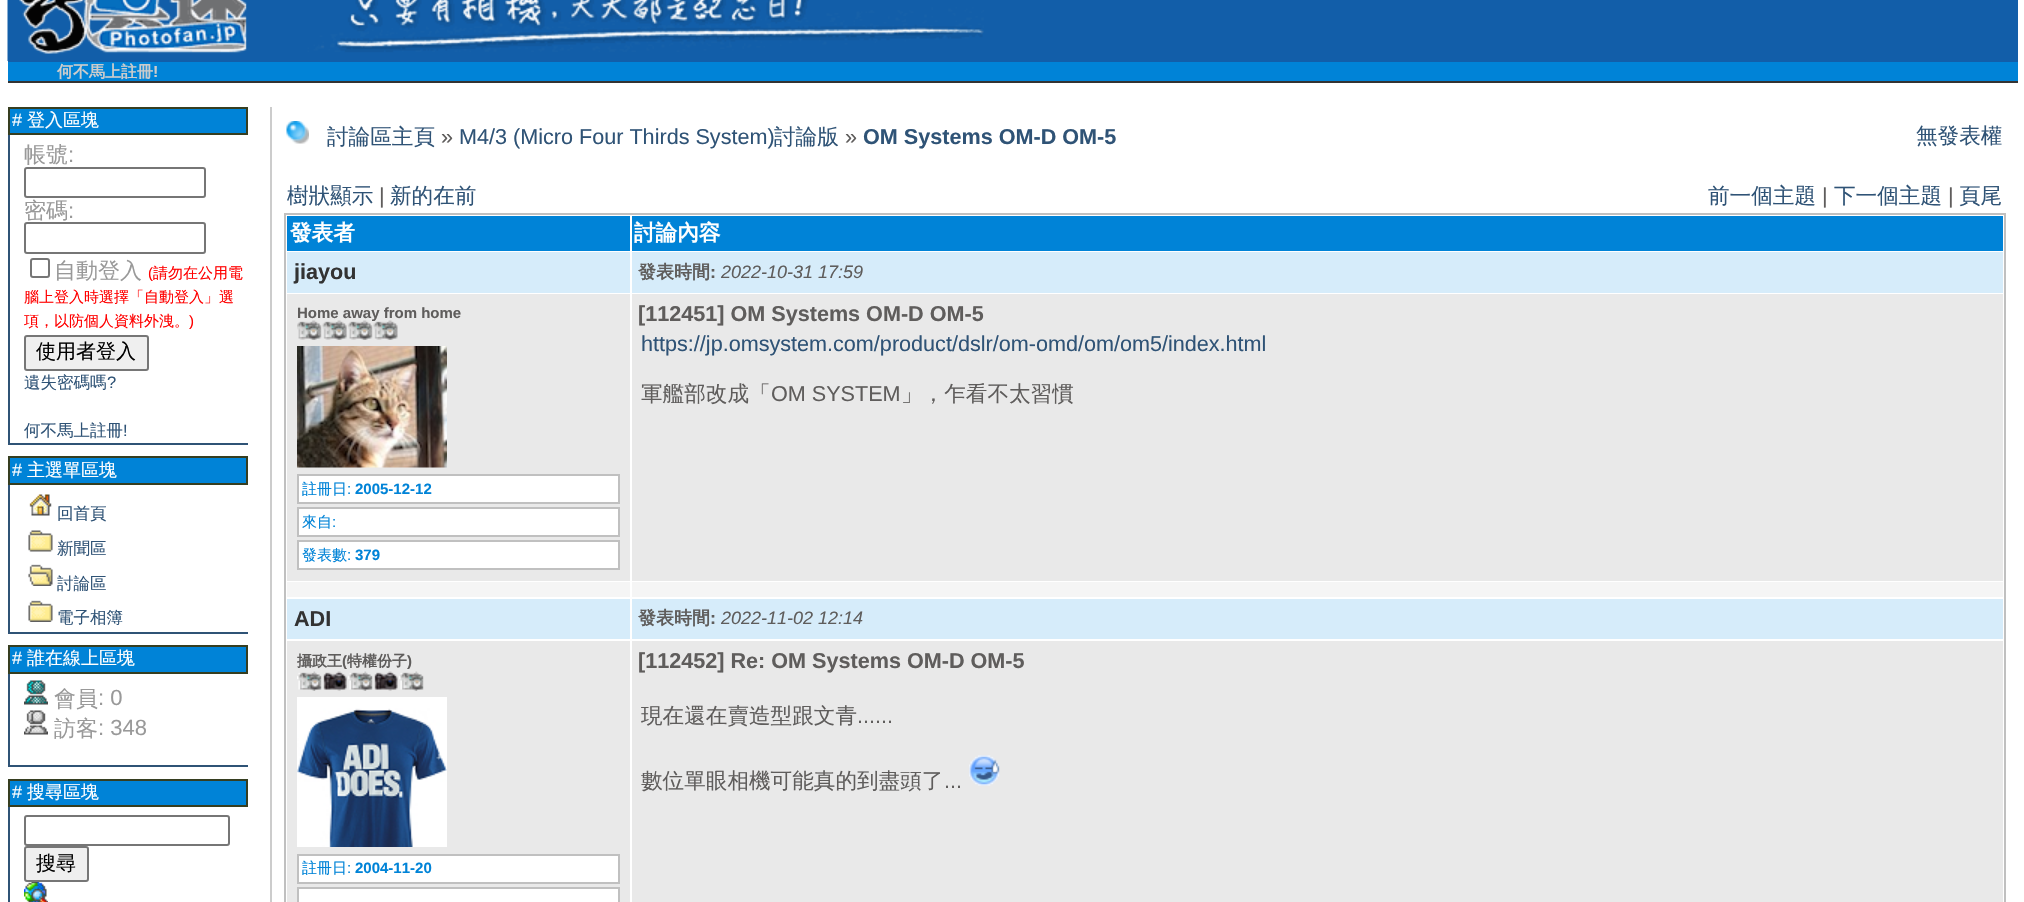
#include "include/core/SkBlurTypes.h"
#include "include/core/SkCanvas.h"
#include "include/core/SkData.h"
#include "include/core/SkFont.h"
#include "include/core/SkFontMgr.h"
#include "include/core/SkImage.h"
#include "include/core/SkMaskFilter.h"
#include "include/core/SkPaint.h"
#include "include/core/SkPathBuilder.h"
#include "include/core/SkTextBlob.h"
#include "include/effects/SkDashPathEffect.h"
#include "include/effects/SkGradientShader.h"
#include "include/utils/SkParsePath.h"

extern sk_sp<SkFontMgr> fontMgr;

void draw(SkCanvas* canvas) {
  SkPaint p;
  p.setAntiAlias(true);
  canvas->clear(SK_ColorWHITE);
  p.setColor(SkColorSetRGB(18, 94, 169));
  canvas->drawRect(SkRect::MakeLTRB(8, 0, 2018, 62), p);
  canvas->drawImageRect(SkImages::DeferredFromEncodedData(SkData::MakeFromFileName("images/1.png")), SkRect::MakeLTRB(7, 0, 984, 61), SkSamplingOptions());
  p.setColor(SkColorSetRGB(0, 131, 215));
  canvas->drawRect(SkRect::MakeLTRB(8, 62, 2018, 81), p);
  p.setColor(SkColorSetRGB(51, 51, 51));
  canvas->drawRect(SkRect::MakeLTRB(8, 81, 2018, 83), p);
  p.setColor(SkColorSetRGB(204, 204, 204));
  canvas->drawRect(SkRect::MakeLTRB(270, 107, 272, 902), p);
  p.setColor(SkColorSetRGB(0, 131, 215));
  canvas->drawRect(SkRect::MakeLTRB(9, 108, 247, 134), p);
  p.setStyle(SkPaint::kStroke_Style);
  p.setStrokeWidth(2);
  p.setColor(SkColorSetRGB(54, 62, 32));
  canvas->drawRect(SkRect::MakeLTRB(9, 108, 247, 134), p);
  p.setStyle(SkPaint::kFill_Style);
  p.setColor(SkColorSetRGB(47, 83, 118));
  canvas->drawRect(SkRect::MakeLTRB(8, 443, 248, 445), p);
  canvas->drawRect(SkRect::MakeLTRB(8, 135, 10, 444), p);
  p.setStyle(SkPaint::kStroke_Style);
  p.setColor(SkColorSetRGB(118, 118, 118));
  canvas->drawRoundRect(SkRect::MakeLTRB(25, 168, 205, 197), 2, 2, p);
  canvas->drawRoundRect(SkRect::MakeLTRB(25, 223, 205, 253), 2, 2, p);
  canvas->drawRoundRect(SkRect::MakeLTRB(31, 259, 49, 277), 2, 2, p);
  p.setStyle(SkPaint::kFill_Style);
  p.setColor(SkColorSetRGB(239, 239, 239));
  canvas->drawRoundRect(SkRect::MakeLTRB(25, 336, 148, 370), 2, 2, p);
  p.setStyle(SkPaint::kStroke_Style);
  p.setColor(SkColorSetRGB(118, 118, 118));
  canvas->drawRoundRect(SkRect::MakeLTRB(25, 336, 148, 370), 2, 2, p);
  p.setStyle(SkPaint::kFill_Style);
  p.setColor(SkColorSetRGB(0, 131, 215));
  canvas->drawRect(SkRect::MakeLTRB(9, 457, 247, 484), p);
  p.setStyle(SkPaint::kStroke_Style);
  p.setColor(SkColorSetRGB(54, 62, 32));
  canvas->drawRect(SkRect::MakeLTRB(9, 457, 247, 484), p);
  p.setStyle(SkPaint::kFill_Style);
  p.setColor(SkColorSetRGB(47, 83, 118));
  canvas->drawRect(SkRect::MakeLTRB(8, 632, 248, 634), p);
  canvas->drawRect(SkRect::MakeLTRB(8, 485, 10, 633), p);
  canvas->drawImageRect(SkImages::DeferredFromEncodedData(SkData::MakeFromFileName("images/2.png")), SkRect::MakeLTRB(29, 494, 52, 516), SkSamplingOptions());
  canvas->drawImageRect(SkImages::DeferredFromEncodedData(SkData::MakeFromFileName("images/3.png")), SkRect::MakeLTRB(28, 530, 53, 552), SkSamplingOptions());
  canvas->drawImageRect(SkImages::DeferredFromEncodedData(SkData::MakeFromFileName("images/4.png")), SkRect::MakeLTRB(28, 564, 53, 586), SkSamplingOptions());
  canvas->drawImageRect(SkImages::DeferredFromEncodedData(SkData::MakeFromFileName("images/5.png")), SkRect::MakeLTRB(28, 600, 53, 622), SkSamplingOptions());
  p.setColor(SkColorSetRGB(0, 131, 215));
  canvas->drawRect(SkRect::MakeLTRB(9, 646, 247, 673), p);
  p.setStyle(SkPaint::kStroke_Style);
  p.setColor(SkColorSetRGB(54, 62, 32));
  canvas->drawRect(SkRect::MakeLTRB(9, 646, 247, 673), p);
  p.setStyle(SkPaint::kFill_Style);
  p.setColor(SkColorSetRGB(47, 83, 118));
  canvas->drawRect(SkRect::MakeLTRB(8, 765, 248, 767), p);
  canvas->drawRect(SkRect::MakeLTRB(8, 674, 10, 767), p);
  canvas->drawImageRect(SkImages::DeferredFromEncodedData(SkData::MakeFromFileName("images/6.png")), SkRect::MakeLTRB(24, 680, 48, 705), SkSamplingOptions());
  canvas->drawImageRect(SkImages::DeferredFromEncodedData(SkData::MakeFromFileName("images/7.png")), SkRect::MakeLTRB(24, 710, 48, 735), SkSamplingOptions());
  p.setColor(SkColorSetRGB(0, 131, 215));
  canvas->drawRect(SkRect::MakeLTRB(9, 780, 247, 806), p);
  p.setStyle(SkPaint::kStroke_Style);
  p.setColor(SkColorSetRGB(54, 62, 32));
  canvas->drawRect(SkRect::MakeLTRB(9, 780, 247, 806), p);
  p.setStyle(SkPaint::kFill_Style);
  p.setColor(SkColorSetRGB(47, 83, 118));
  canvas->drawRect(SkRect::MakeLTRB(8, 807, 10, 902), p);
  p.setStyle(SkPaint::kStroke_Style);
  p.setColor(SkColorSetRGB(118, 118, 118));
  canvas->drawRoundRect(SkRect::MakeLTRB(25, 816, 229, 845), 2, 2, p);
  p.setStyle(SkPaint::kFill_Style);
  p.setColor(SkColorSetRGB(239, 239, 239));
  canvas->drawRoundRect(SkRect::MakeLTRB(25, 847, 88, 881), 2, 2, p);
  p.setStyle(SkPaint::kStroke_Style);
  p.setColor(SkColorSetRGB(118, 118, 118));
  canvas->drawRoundRect(SkRect::MakeLTRB(25, 847, 88, 881), 2, 2, p);
  canvas->drawImageRect(SkImages::DeferredFromEncodedData(SkData::MakeFromFileName("images/8.png")), SkRect::MakeLTRB(24, 882, 48, 902), SkSamplingOptions());
  canvas->drawImageRect(SkImages::DeferredFromEncodedData(SkData::MakeFromFileName("images/9.png")), SkRect::MakeLTRB(286, 121, 309, 144), SkSamplingOptions());
  p.setColor(SkColorSetRGB(192, 192, 192));
  canvas->drawRect(SkRect::MakeLTRB(285, 214, 2005, 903), p);
  p.setStyle(SkPaint::kFill_Style);
  p.setColor(SkColorSetRGB(0, 131, 215));
  canvas->drawRect(SkRect::MakeLTRB(287, 216, 630, 251), p);
  canvas->drawRect(SkRect::MakeLTRB(632, 216, 2003, 251), p);
  p.setColor(SkColorSetRGB(214, 236, 250));
  canvas->drawRect(SkRect::MakeLTRB(287, 252, 630, 293), p);
  canvas->drawRect(SkRect::MakeLTRB(632, 252, 2003, 293), p);
  p.setColor(SkColorSetRGB(233, 233, 233));
  canvas->drawRect(SkRect::MakeLTRB(287, 294, 630, 581), p);
  canvas->drawImageRect(SkImages::DeferredFromEncodedData(SkData::MakeFromFileName("images/11.png")), SkRect::MakeLTRB(297, 346, 447, 468), SkSamplingOptions());
  p.setColor(SK_ColorWHITE);
  canvas->drawRect(SkRect::MakeLTRB(298, 475, 619, 503), p);
  p.setStyle(SkPaint::kStroke_Style);
  p.setColor(SkColorSetRGB(192, 192, 192));
  canvas->drawRect(SkRect::MakeLTRB(298, 475, 619, 503), p);
  p.setStyle(SkPaint::kFill_Style);
  p.setColor(SK_ColorWHITE);
  canvas->drawRect(SkRect::MakeLTRB(298, 508, 619, 536), p);
  p.setStyle(SkPaint::kStroke_Style);
  p.setColor(SkColorSetRGB(192, 192, 192));
  canvas->drawRect(SkRect::MakeLTRB(298, 508, 619, 536), p);
  p.setStyle(SkPaint::kFill_Style);
  p.setColor(SK_ColorWHITE);
  canvas->drawRect(SkRect::MakeLTRB(298, 541, 619, 569), p);
  p.setStyle(SkPaint::kStroke_Style);
  p.setColor(SkColorSetRGB(192, 192, 192));
  canvas->drawRect(SkRect::MakeLTRB(298, 541, 619, 569), p);
  p.setStyle(SkPaint::kFill_Style);
  p.setColor(SkColorSetRGB(233, 233, 233));
  canvas->drawRect(SkRect::MakeLTRB(632, 294, 2003, 581), p);
  p.setColor(SkColorSetRGB(245, 245, 245));
  canvas->drawRect(SkRect::MakeLTRB(287, 582, 630, 597), p);
  canvas->drawRect(SkRect::MakeLTRB(632, 582, 2003, 597), p);
  p.setColor(SkColorSetRGB(214, 236, 250));
  canvas->drawRect(SkRect::MakeLTRB(287, 599, 630, 639), p);
  canvas->drawRect(SkRect::MakeLTRB(632, 599, 2003, 639), p);
  p.setColor(SkColorSetRGB(233, 233, 233));
  canvas->drawRect(SkRect::MakeLTRB(287, 641, 630, 902), p);
  canvas->drawImageRect(SkImages::DeferredFromEncodedData(SkData::MakeFromFileName("images/12.png")), SkRect::MakeLTRB(297, 671, 424, 691), SkSamplingOptions());
  canvas->drawImageRect(SkImages::DeferredFromEncodedData(SkData::MakeFromFileName("images/13.png")), SkRect::MakeLTRB(297, 697, 447, 847), SkSamplingOptions());
  p.setColor(SK_ColorWHITE);
  canvas->drawRect(SkRect::MakeLTRB(298, 855, 619, 883), p);
  p.setStyle(SkPaint::kStroke_Style);
  p.setColor(SkColorSetRGB(192, 192, 192));
  canvas->drawRect(SkRect::MakeLTRB(298, 855, 619, 883), p);
  p.setStyle(SkPaint::kFill_Style);
  p.setColor(SK_ColorWHITE);
  canvas->drawRect(SkRect::MakeLTRB(298, 888, 619, 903), p);
  p.setStyle(SkPaint::kStroke_Style);
  p.setColor(SkColorSetRGB(192, 192, 192));
  canvas->drawRect(SkRect::MakeLTRB(298, 888, 619, 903), p);
  p.setStyle(SkPaint::kFill_Style);
  p.setColor(SkColorSetRGB(233, 233, 233));
  canvas->drawRect(SkRect::MakeLTRB(632, 641, 2003, 902), p);
  canvas->drawImageRect(SkImages::DeferredFromEncodedData(SkData::MakeFromFileName("images/14.png")), SkRect::MakeLTRB(969, 755, 1000, 786), SkSamplingOptions());
  SkFont font1(fontMgr->matchFamilyStyle("WenQuanYi Zen Hei", SkFontStyle::Bold()), 16);
  font1.setSubpixel(true);
  p.setColor(SkColorSetRGB(204, 204, 204));
  canvas->drawString("何不馬上註冊", 57, 77, font1, p);
  SkFont font2(fontMgr->matchFamilyStyle("Liberation Sans", SkFontStyle::Bold()), 16);
  font2.setSubpixel(true);
  canvas->drawString("!", 153, 77, font2, p);
  SkFont font3(fontMgr->matchFamilyStyle("Liberation Sans", SkFontStyle::Normal()), 18);
  font3.setSubpixel(true);
  p.setColor(SK_ColorWHITE);
  canvas->drawString("#", 12, 126, font3, p);
  SkFont font4(fontMgr->matchFamilyStyle("WenQuanYi Zen Hei", SkFontStyle(500, SkFontStyle::kNormal_Width, SkFontStyle::kUpright_Slant)), 18);
  font4.setSubpixel(true);
  canvas->drawString("登入區塊", 27, 126, font4, p);
  SkFont font5(fontMgr->matchFamilyStyle("WenQuanYi Zen Hei", SkFontStyle(500, SkFontStyle::kNormal_Width, SkFontStyle::kUpright_Slant)), 22);
  font5.setSubpixel(true);
  p.setColor(SkColorSetRGB(153, 153, 153));
  canvas->drawString("帳號", 24, 162, font5, p);
  SkFont font6(fontMgr->matchFamilyStyle("Liberation Sans", SkFontStyle::Normal()), 22);
  font6.setSubpixel(true);
  canvas->drawString(":", 68, 162, font6, p);
  canvas->drawString("密碼", 24, 218, font5, p);
  canvas->drawString(":", 68, 218, font6, p);
  canvas->drawString("自動登入", 54, 278, font5, p);
  SkFont font7(fontMgr->matchFamilyStyle("Liberation Sans", SkFontStyle::Normal()), 15);
  font7.setSubpixel(true);
  p.setColor(SkColorSetRGB(255, 0, 0));
  canvas->drawString("(", 148, 278, font7, p);
  SkFont font8(fontMgr->matchFamilyStyle("WenQuanYi Zen Hei", SkFontStyle(500, SkFontStyle::kNormal_Width, SkFontStyle::kUpright_Slant)), 15);
  font8.setSubpixel(true);
  canvas->drawString("請勿在公用電", 153, 278, font8, p);
  canvas->drawString("腦上登入時選擇「自動登入」選", 24, 302, font8, p);
  canvas->drawString("項，以防個人資料外洩。", 24, 326, font8, p);
  canvas->drawString(")", 189, 326, font7, p);
  SkFont font9(fontMgr->matchFamilyStyle("WenQuanYi Zen Hei", SkFontStyle(500, SkFontStyle::kNormal_Width, SkFontStyle::kUpright_Slant)), 20);
  font9.setSubpixel(true);
  p.setColor(SK_ColorBLACK);
  canvas->drawString("使用者登入", 36, 358, font9, p);
  SkFont font10(fontMgr->matchFamilyStyle("WenQuanYi Zen Hei", SkFontStyle(500, SkFontStyle::kNormal_Width, SkFontStyle::kUpright_Slant)), 16.5f);
  font10.setSubpixel(true);
  p.setColor(SkColorSetRGB(47, 83, 118));
  canvas->drawString("遺失密碼嗎", 24, 388, font10, p);
  SkFont font11(fontMgr->matchFamilyStyle("Liberation Sans", SkFontStyle::Normal()), 16.5f);
  font11.setSubpixel(true);
  canvas->drawString("?", 107, 388, font11, p);
  canvas->drawString("何不馬上註冊", 24, 436, font10, p);
  canvas->drawString("!", 123, 436, font11, p);
  p.setColor(SK_ColorWHITE);
  canvas->drawString("#", 12, 476, font3, p);
  canvas->drawString("主選單區塊", 27, 476, font4, p);
  p.setColor(SkColorSetRGB(47, 83, 118));
  canvas->drawString("回首頁", 57, 519, font10, p);
  canvas->drawString("新聞區", 57, 554, font10, p);
  canvas->drawString("討論區", 57, 589, font10, p);
  canvas->drawString("電子相簿", 57, 623, font10, p);
  p.setColor(SK_ColorWHITE);
  canvas->drawString("#", 12, 664, font3, p);
  canvas->drawString("誰在線上區塊", 27, 664, font4, p);
  p.setColor(SkColorSetRGB(153, 153, 153));
  canvas->drawString("會員", 54, 706, font5, p);
  canvas->drawString(": 0", 98, 705, font6, p);
  canvas->drawString("訪客", 54, 736, font5, p);
  canvas->drawString(": 348", 98, 735, font6, p);
  p.setColor(SK_ColorWHITE);
  canvas->drawString("#", 12, 798, font3, p);
  canvas->drawString("搜尋區塊", 27, 798, font4, p);
  p.setColor(SK_ColorBLACK);
  canvas->drawString("搜尋", 36, 870, font9, p);
  SkFont font12(fontMgr->matchFamilyStyle("WenQuanYi Zen Hei", SkFontStyle(500, SkFontStyle::kNormal_Width, SkFontStyle::kUpright_Slant)), 21.6f);
  font12.setSubpixel(true);
  p.setColor(SkColorSetRGB(47, 83, 118));
  canvas->drawString("討論區主頁", 327, 144, font12, p);
  SkFont font13(fontMgr->matchFamilyStyle("Liberation Sans", SkFontStyle::Normal()), 21.6f);
  font13.setSubpixel(true);
  p.setColor(SkColorSetRGB(95, 93, 92));
  canvas->drawString("»", 441, 144, font13, p);
  p.setColor(SkColorSetRGB(47, 83, 118));
  canvas->drawString("M4/3 (Micro Four Thirds System)", 459, 144, font13, p);
  canvas->drawString("討論版", 774, 144, font12, p);
  p.setColor(SkColorSetRGB(95, 93, 92));
  canvas->drawString("»", 845, 144, font13, p);
  SkFont font14(fontMgr->matchFamilyStyle("Liberation Sans", SkFontStyle::Bold()), 21.6f);
  font14.setSubpixel(true);
  p.setColor(SkColorSetRGB(47, 83, 118));
  canvas->drawString("OM Systems OM-D OM-5", 863, 144, font14, p);
  canvas->drawString("無發表權", 1916, 143, font12, p);
  canvas->drawString("樹狀顯示", 287, 203, font12, p);
  p.setColor(SkColorSetRGB(95, 93, 92));
  canvas->drawString("|", 379, 203, font13, p);
  p.setColor(SkColorSetRGB(47, 83, 118));
  canvas->drawString("新的在前", 390, 203, font12, p);
  canvas->drawString("前一個主題", 1708, 203, font12, p);
  p.setColor(SkColorSetRGB(95, 93, 92));
  canvas->drawString("|", 1822, 203, font13, p);
  p.setColor(SkColorSetRGB(47, 83, 118));
  canvas->drawString("下一個主題", 1834, 203, font12, p);
  p.setColor(SkColorSetRGB(95, 93, 92));
  canvas->drawString("|", 1948, 203, font13, p);
  p.setColor(SkColorSetRGB(47, 83, 118));
  canvas->drawString("頁尾", 1959, 203, font12, p);
  SkFont font15(fontMgr->matchFamilyStyle("WenQuanYi Zen Hei", SkFontStyle::Bold()), 21.6f);
  font15.setSubpixel(true);
  p.setColor(SK_ColorWHITE);
  canvas->drawString("發表者", 290, 240, font15, p);
  canvas->drawString("討論內容", 634, 240, font15, p);
  p.setColor(SkColorSetRGB(51, 51, 51));
  canvas->drawString("jiayou", 294, 279, font14, p);
  SkFont font16(fontMgr->matchFamilyStyle("WenQuanYi Zen Hei", SkFontStyle::Bold()), 18);
  font16.setSubpixel(true);
  p.setColor(SkColorSetRGB(95, 93, 92));
  canvas->drawString("發表時間", 638, 278, font16, p);
  SkFont font17(fontMgr->matchFamilyStyle("Liberation Sans", SkFontStyle::Bold()), 18);
  font17.setSubpixel(true);
  canvas->drawString(":", 710, 278, font17, p);
  SkFont font18(fontMgr->matchFamilyStyle("Liberation Sans", SkFontStyle::Italic()), 18);
  font18.setSubpixel(true);
  canvas->drawString("2022-10-31 17:59", 721, 278, font18, p);
  SkFont font19(fontMgr->matchFamilyStyle("Liberation Sans", SkFontStyle::Bold()), 15);
  font19.setSubpixel(true);
  canvas->drawString("Home away from home", 297, 318, font19, p);
  canvas->drawImageRect(SkImages::DeferredFromEncodedData(SkData::MakeFromFileName("images/10.png")), SkRect::MakeLTRB(297, 320, 398, 340), SkSamplingOptions());
  p.setColor(SkColorSetRGB(0, 131, 215));
  canvas->drawString("註冊日", 302, 494, font8, p);
  canvas->drawString(":", 347, 494, font7, p);
  canvas->drawString("2005-12-12", 355, 494, font19, p);
  canvas->drawString("來自", 302, 527, font8, p);
  canvas->drawString(":", 332, 527, font7, p);
  canvas->drawString("發表數", 302, 560, font8, p);
  canvas->drawString(":", 347, 560, font7, p);
  canvas->drawString("379", 355, 560, font19, p);
  p.setColor(SkColorSetRGB(95, 93, 92));
  canvas->drawString("[112451] OM Systems OM-D OM-5", 638, 321, font14, p);
  p.setColor(SkColorSetRGB(47, 83, 118));
  canvas->drawString("https://jp.omsystem.com/product/dslr/om-omd/om/om5/index.html", 641, 351, font13, p);
  p.setColor(SkColorSetRGB(95, 93, 92));
  canvas->drawString("軍艦部改成「", 641, 401, font12, p);
  canvas->drawString("OM SYSTEM", 771, 401, font13, p);
  canvas->drawString("」，乍看不太習慣", 901, 401, font12, p);
  p.setColor(SkColorSetRGB(51, 51, 51));
  canvas->drawString("ADI", 294, 626, font14, p);
  p.setColor(SkColorSetRGB(95, 93, 92));
  canvas->drawString("發表時間", 638, 624, font16, p);
  canvas->drawString(":", 710, 624, font17, p);
  canvas->drawString("2022-11-02 12:14", 721, 624, font18, p);
  SkFont font20(fontMgr->matchFamilyStyle("WenQuanYi Zen Hei", SkFontStyle::Bold()), 15);
  font20.setSubpixel(true);
  canvas->drawString("攝政王", 297, 666, font20, p);
  canvas->drawString("(", 342, 666, font19, p);
  canvas->drawString("特權份子", 347, 666, font20, p);
  canvas->drawString(")", 407, 666, font19, p);
  p.setColor(SkColorSetRGB(0, 131, 215));
  canvas->drawString("註冊日", 302, 873, font8, p);
  canvas->drawString(":", 347, 873, font7, p);
  canvas->drawString("2004-11-20", 355, 873, font19, p);
  p.setColor(SkColorSetRGB(95, 93, 92));
  canvas->drawString("[112452] Re: OM Systems OM-D OM-5", 638, 668, font14, p);
  canvas->drawString("現在還在賣造型跟文青", 641, 723, font12, p);
  canvas->drawString("......", 857, 723, font13, p);
  canvas->drawString("數位單眼相機可能真的到盡頭了", 641, 788, font12, p);
  canvas->drawString("...", 944, 788, font13, p);
}
